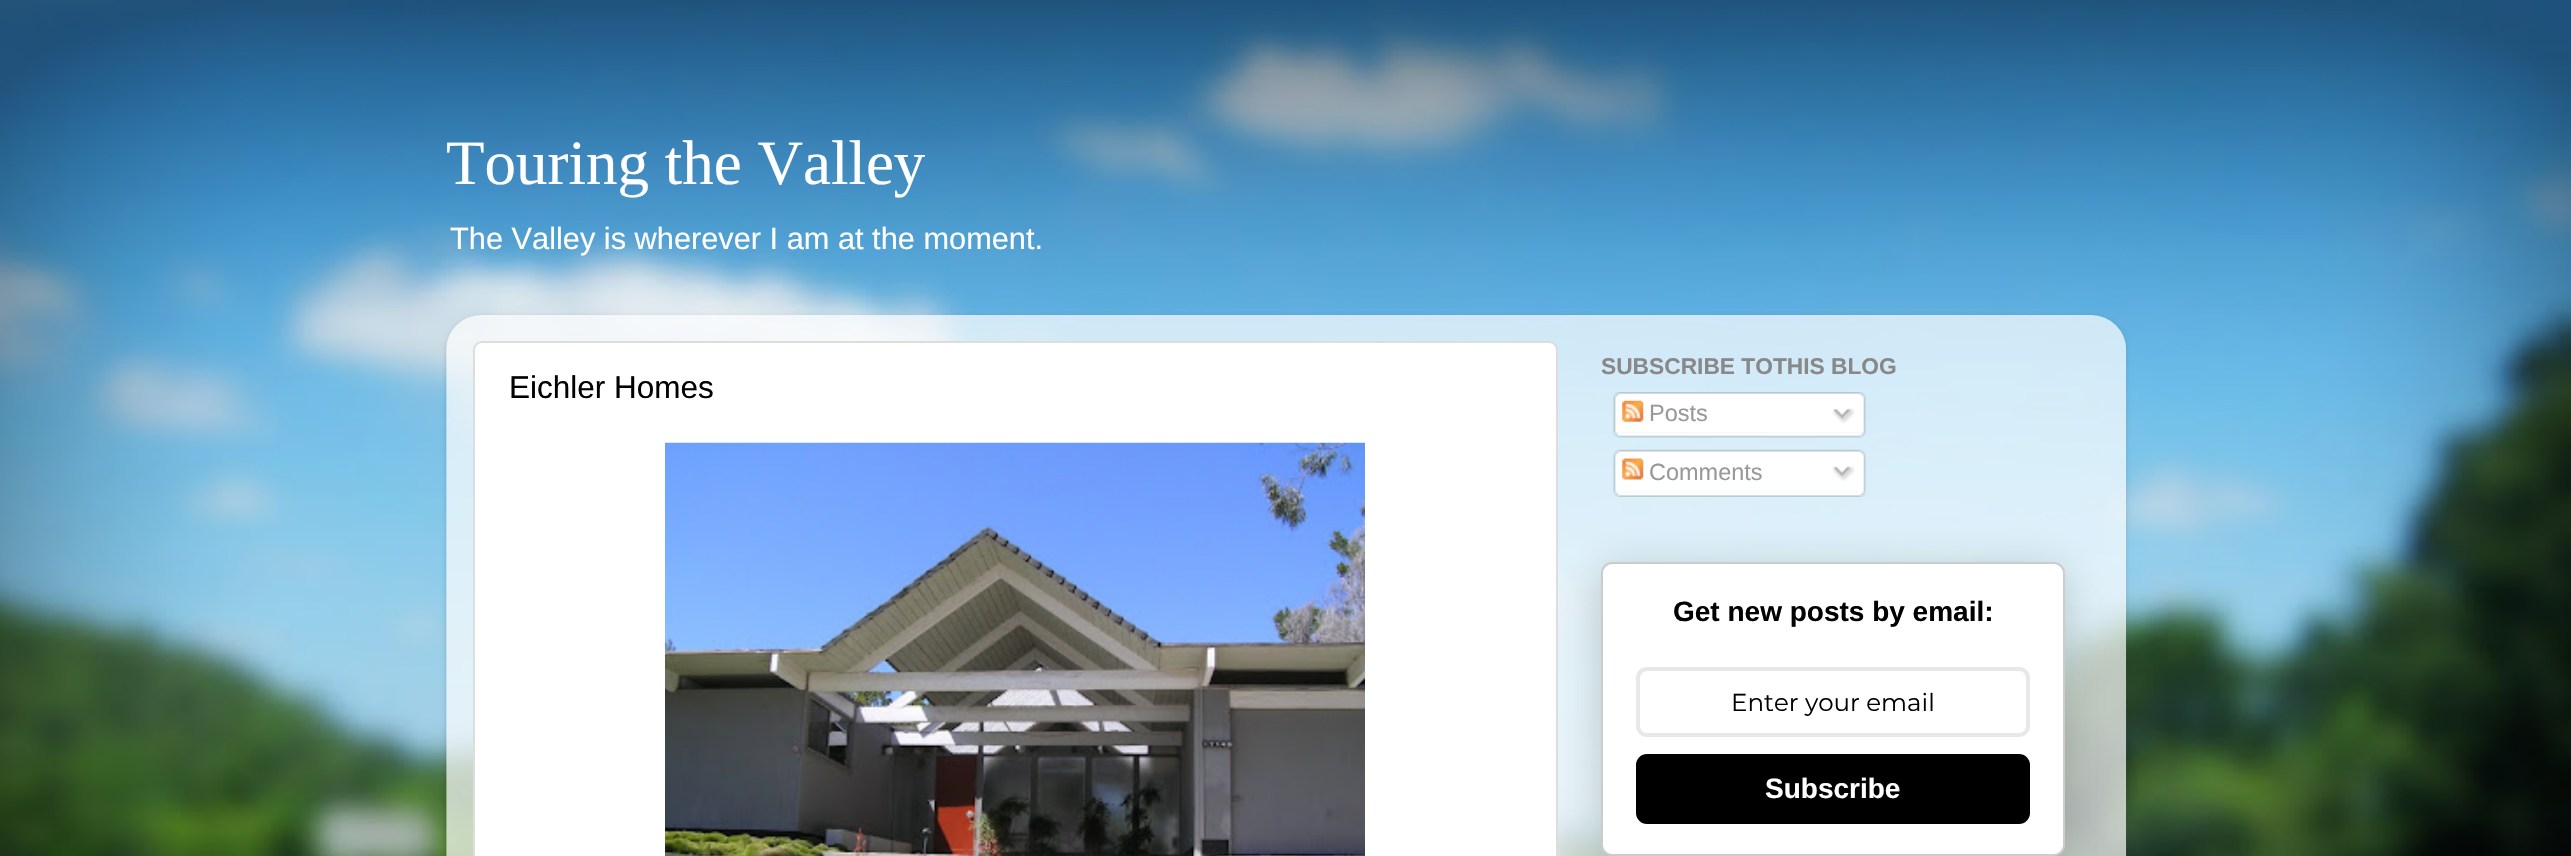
#include "include/core/SkBlurTypes.h"
#include "include/core/SkCanvas.h"
#include "include/core/SkData.h"
#include "include/core/SkFont.h"
#include "include/core/SkFontMgr.h"
#include "include/core/SkImage.h"
#include "include/core/SkMaskFilter.h"
#include "include/core/SkPaint.h"
#include "include/core/SkPathBuilder.h"
#include "include/core/SkTextBlob.h"
#include "include/effects/SkDashPathEffect.h"
#include "include/effects/SkGradientShader.h"
#include "include/utils/SkParsePath.h"

extern sk_sp<SkFontMgr> fontMgr;

void draw(SkCanvas* canvas) {
  SkPaint p;
  p.setAntiAlias(true);
  canvas->clear(SK_ColorWHITE);
  canvas->drawImageRect(SkImages::DeferredFromEncodedData(SkData::MakeFromFileName("images/1.png")), SkRect::MakeLTRB(0, 0, 2571, 856), SkSamplingOptions());
  canvas->save();
  canvas->clipPath(SkPathBuilder(SkPathFillType::kEvenOdd).moveTo(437, 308).lineTo(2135, 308).lineTo(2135, 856).lineTo(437, 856).close().moveTo(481, 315).lineTo(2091, 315).cubicTo(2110.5f, 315, 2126, 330.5f, 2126, 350).lineTo(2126, 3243).lineTo(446, 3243).lineTo(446, 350).cubicTo(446, 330.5f, 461.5f, 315, 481, 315).close().detach(), true);
  p.setColor(SkColorSetARGB(38, 0, 0, 0));
  p.setMaskFilter(SkMaskFilter::MakeBlur(kNormal_SkBlurStyle, 2.5f));
  canvas->drawRoundRect(SkRect::MakeLTRB(446, 317, 2126, 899), 35, 35, p);
  p.setMaskFilter(nullptr);
  canvas->restore();
  canvas->drawImageRect(SkImages::DeferredFromEncodedData(SkData::MakeFromFileName("images/2.png")), SkRect::MakeLTRB(446, 315, 2127, 856), SkSamplingOptions());
  p.setColor(SK_ColorWHITE);
  canvas->drawRoundRect(SkRect::MakeLTRB(474, 342, 1557, 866), 8, 8, p);
  p.setStyle(SkPaint::kStroke_Style);
  p.setStrokeWidth(2);
  p.setColor(SkColorSetRGB(221, 221, 221));
  canvas->drawRoundRect(SkRect::MakeLTRB(474, 342, 1557, 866), 8, 8, p);
  canvas->drawImageRect(SkImages::DeferredFromEncodedData(SkData::MakeFromFileName("images/3.png")), SkRect::MakeLTRB(665, 442, 1365, 856), SkSamplingOptions());
  canvas->drawImageRect(SkImages::DeferredFromEncodedData(SkData::MakeFromFileName("images/4.png")), SkRect::MakeLTRB(1613, 392, 1866, 433), SkSamplingOptions());
  canvas->drawImageRect(SkImages::DeferredFromEncodedData(SkData::MakeFromFileName("images/5.png")), SkRect::MakeLTRB(1622, 400, 1644, 422), SkSamplingOptions());
  canvas->drawImageRect(SkImages::DeferredFromEncodedData(SkData::MakeFromFileName("images/6.png")), SkRect::MakeLTRB(1832, 408, 1855, 424), SkSamplingOptions());
  canvas->drawImageRect(SkImages::DeferredFromEncodedData(SkData::MakeFromFileName("images/7.png")), SkRect::MakeLTRB(1613, 432, 1866, 438), SkSamplingOptions());
  canvas->drawImageRect(SkImages::DeferredFromEncodedData(SkData::MakeFromFileName("images/8.png")), SkRect::MakeLTRB(1613, 449, 1866, 492), SkSamplingOptions());
  canvas->drawImageRect(SkImages::DeferredFromEncodedData(SkData::MakeFromFileName("images/9.png")), SkRect::MakeLTRB(1622, 458, 1644, 480), SkSamplingOptions());
  canvas->drawImageRect(SkImages::DeferredFromEncodedData(SkData::MakeFromFileName("images/10.png")), SkRect::MakeLTRB(1832, 466, 1855, 481), SkSamplingOptions());
  canvas->drawImageRect(SkImages::DeferredFromEncodedData(SkData::MakeFromFileName("images/11.png")), SkRect::MakeLTRB(1613, 491, 1866, 497), SkSamplingOptions());
  p.setStyle(SkPaint::kFill_Style);
  p.setColor(SkColorSetARGB(64, 34, 60, 47));
  p.setMaskFilter(SkMaskFilter::MakeBlur(kNormal_SkBlurStyle, 22));
  canvas->drawRoundRect(SkRect::MakeLTRB(1601, 571, 2065, 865), 11, 11, p);
  p.setMaskFilter(nullptr);
  p.setColor(SK_ColorWHITE);
  canvas->drawRoundRect(SkRect::MakeLTRB(1602, 563, 2064, 855), 10, 10, p);
  p.setStyle(SkPaint::kStroke_Style);
  p.setColor(SkColorSetRGB(204, 204, 204));
  canvas->drawRoundRect(SkRect::MakeLTRB(1602, 563, 2064, 855), 10, 10, p);
  p.setStrokeWidth(4);
  p.setColor(SkColorSetRGB(233, 232, 232));
  canvas->drawRoundRect(SkRect::MakeLTRB(1638, 669, 2028, 735), 9, 9, p);
  p.setStyle(SkPaint::kFill_Style);
  p.setColor(SK_ColorBLACK);
  canvas->drawRoundRect(SkRect::MakeLTRB(1636, 754, 2030, 824), 11, 11, p);
  SkFont font1(fontMgr->matchFamilyStyle("Liberation Serif", SkFontStyle::Normal()), 63);
  font1.setSubpixel(true);
  p.setColor(SK_ColorWHITE);
  canvas->drawString("Touring the Valley", 446, 184, font1, p);
  SkFont font2(fontMgr->matchFamilyStyle("Liberation Sans", SkFontStyle::Normal()), 30.75f);
  font2.setSubpixel(true);
  canvas->drawString("The Valley is wherever I am at the moment.", 450, 249, font2, p);
  SkFont font3(fontMgr->matchFamilyStyle("Liberation Sans", SkFontStyle::Normal()), 31.5f);
  font3.setSubpixel(true);
  p.setColor(SK_ColorBLACK);
  canvas->drawString("Eichler Homes", 509, 398, font3, p);
  SkFont font4(fontMgr->matchFamilyStyle("Liberation Sans", SkFontStyle::Bold()), 22.75f);
  font4.setSubpixel(true);
  p.setColor(SkColorSetRGB(136, 136, 136));
  canvas->drawString("SUBSCRIBE TOTHIS BLOG", 1601, 374, font4, p);
  SkFont font5(fontMgr->matchFamilyStyle("Liberation Sans", SkFontStyle::Normal()), 23.5f);
  font5.setSubpixel(true);
  p.setColor(SkColorSetRGB(153, 153, 153));
  canvas->drawString("Posts", 1649, 421, font5, p);
  canvas->drawString("Comments", 1649, 480, font5, p);
  SkFont font6(fontMgr->matchFamilyStyle("Liberation Sans", SkFontStyle::Bold()), 28);
  font6.setSubpixel(true);
  p.setColor(SK_ColorBLACK);
  canvas->drawString("Get new posts by email:", 1673, 621, font6, p);
  SkFont font7(fontMgr->matchFamilyStyle("Montserrat", SkFontStyle::Normal()), 24.5f);
  font7.setSubpixel(true);
  canvas->drawString("Enter your email", 1731, 711, font7, p);
  p.setColor(SK_ColorWHITE);
  canvas->drawString("Subscribe", 1765, 798, font6, p);
}
